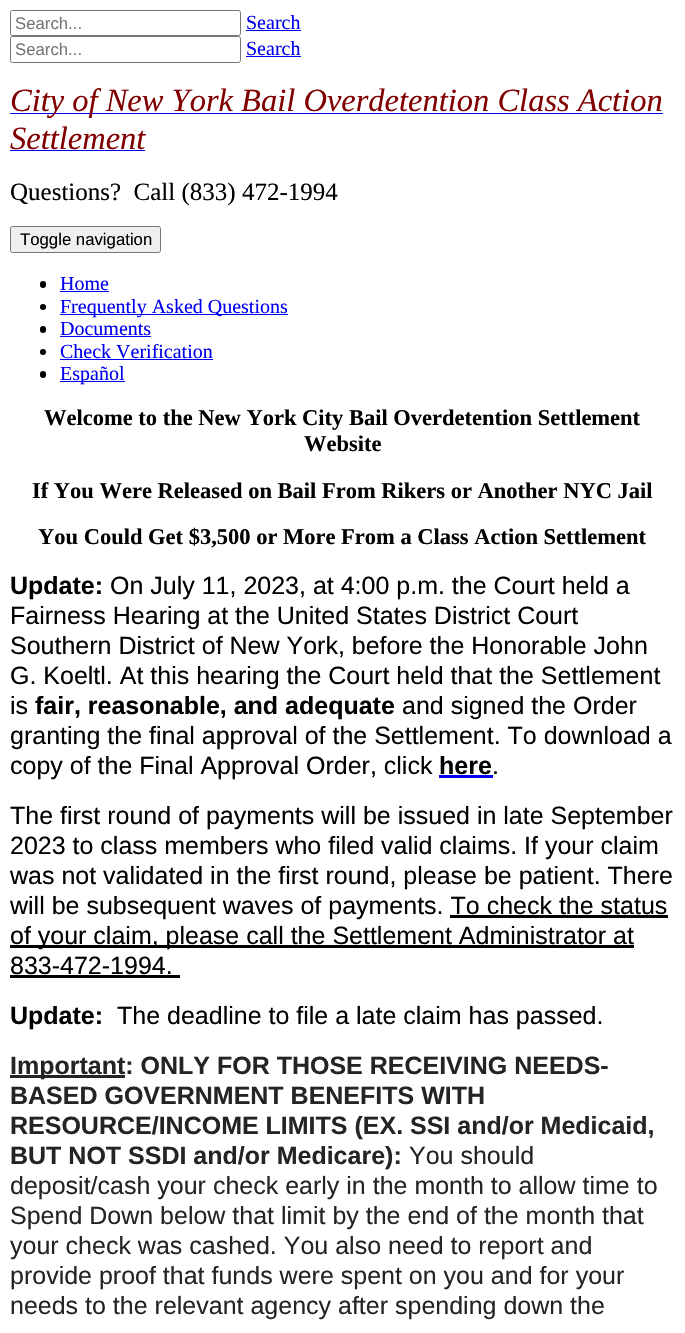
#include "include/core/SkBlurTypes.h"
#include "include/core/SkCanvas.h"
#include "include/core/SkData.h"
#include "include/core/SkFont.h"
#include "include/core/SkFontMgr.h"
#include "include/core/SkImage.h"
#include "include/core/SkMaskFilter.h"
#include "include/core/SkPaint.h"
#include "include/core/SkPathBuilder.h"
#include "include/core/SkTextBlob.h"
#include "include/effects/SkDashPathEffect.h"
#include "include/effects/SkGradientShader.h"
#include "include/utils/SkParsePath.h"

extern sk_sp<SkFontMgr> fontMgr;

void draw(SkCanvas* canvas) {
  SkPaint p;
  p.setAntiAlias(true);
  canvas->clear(SK_ColorWHITE);
  p.setStyle(SkPaint::kStroke_Style);
  p.setStrokeWidth(1);
  p.setColor(SkColorSetRGB(118, 118, 118));
  canvas->drawRoundRect(SkRect::MakeLTRB(10.5f, 10.5f, 240.5f, 35.5f), 2, 2, p);
  p.setStyle(SkPaint::kFill_Style);
  p.setColor(SkColorSetRGB(0, 0, 238));
  canvas->drawRect(SkRect::MakeLTRB(246, 30, 301, 31), p);
  p.setStyle(SkPaint::kStroke_Style);
  p.setColor(SkColorSetRGB(118, 118, 118));
  canvas->drawRoundRect(SkRect::MakeLTRB(10.5f, 36.5f, 240.5f, 62.5f), 2, 2, p);
  p.setStyle(SkPaint::kFill_Style);
  p.setColor(SkColorSetRGB(0, 0, 238));
  canvas->drawRect(SkRect::MakeLTRB(246, 56, 301, 57), p);
  canvas->drawRect(SkRect::MakeLTRB(10, 113, 663, 114), p);
  canvas->drawRect(SkRect::MakeLTRB(10, 150, 145, 151), p);
  p.setColor(SkColorSetRGB(239, 239, 239));
  canvas->drawRoundRect(SkRect::MakeLTRB(10.5f, 226.5f, 160.5f, 252.5f), 2, 2, p);
  p.setStyle(SkPaint::kStroke_Style);
  p.setColor(SkColorSetRGB(118, 118, 118));
  canvas->drawRoundRect(SkRect::MakeLTRB(10.5f, 226.5f, 160.5f, 252.5f), 2, 2, p);
  p.setStyle(SkPaint::kFill_Style);
  p.setColor(SK_ColorBLACK);
  canvas->drawRoundRect(SkRect::MakeLTRB(40, 281, 46, 288), 3, 3, p);
  p.setColor(SkColorSetRGB(0, 0, 238));
  canvas->drawRect(SkRect::MakeLTRB(60, 291, 109, 292), p);
  p.setColor(SK_ColorBLACK);
  canvas->drawCircle(43, 307, 3, p);
  p.setColor(SkColorSetRGB(0, 0, 238));
  canvas->drawRect(SkRect::MakeLTRB(60, 314, 288, 315), p);
  p.setColor(SK_ColorBLACK);
  canvas->drawRoundRect(SkRect::MakeLTRB(40, 326, 46, 333), 3, 3, p);
  p.setColor(SkColorSetRGB(0, 0, 238));
  canvas->drawRect(SkRect::MakeLTRB(60, 336, 151, 337), p);
  p.setColor(SK_ColorBLACK);
  canvas->drawCircle(43, 352, 3, p);
  p.setColor(SkColorSetRGB(0, 0, 238));
  canvas->drawRect(SkRect::MakeLTRB(60, 359, 213, 360), p);
  p.setColor(SK_ColorBLACK);
  canvas->drawRoundRect(SkRect::MakeLTRB(40, 371, 46, 378), 3, 3, p);
  p.setColor(SkColorSetRGB(0, 0, 238));
  canvas->drawRect(SkRect::MakeLTRB(60, 381, 125, 382), p);
  canvas->drawRect(SkRect::MakeLTRB(439, 775, 493, 778), p);
  p.setColor(SK_ColorBLACK);
  canvas->drawRect(SkRect::MakeLTRB(450, 915, 668, 918), p);
  canvas->drawRect(SkRect::MakeLTRB(10, 945, 634, 948), p);
  canvas->drawRect(SkRect::MakeLTRB(10, 975, 180, 978), p);
  p.setColor(SkColorSetRGB(36, 36, 36));
  canvas->drawRect(SkRect::MakeLTRB(10, 1075, 125, 1078), p);
  SkFont font1(fontMgr->matchFamilyStyle("Liberation Sans", SkFontStyle::Normal()), 16.75f);
  font1.setSubpixel(true);
  p.setColor(SkColorSetRGB(117, 117, 117));
  canvas->drawString("Search...", 15, 29, font1, p);
  SkFont font2(fontMgr->matchFamilyStyle("Liberation Serif", SkFontStyle::Normal()), 20);
  font2.setSubpixel(true);
  p.setColor(SkColorSetRGB(0, 0, 238));
  canvas->drawString("Search", 246, 29, font2, p);
  p.setColor(SkColorSetRGB(117, 117, 117));
  canvas->drawString("Search...", 15, 55, font1, p);
  p.setColor(SkColorSetRGB(0, 0, 238));
  canvas->drawString("Search", 246, 55, font2, p);
  SkFont font3(fontMgr->matchFamilyStyle("Liberation Serif", SkFontStyle::Italic()), 32.5f);
  font3.setSubpixel(true);
  p.setColor(SkColorSetRGB(128, 0, 0));
  canvas->drawString("City of New York Bail Overdetention Class Action", 10, 111, font3, p);
  canvas->drawString("Settlement", 10, 149, font3, p);
  SkFont font4(fontMgr->matchFamilyStyle("Liberation Serif", SkFontStyle::Normal()), 25);
  font4.setSubpixel(true);
  p.setColor(SK_ColorBLACK);
  canvas->drawString("Questions?  Call (833) 472-1994", 10, 200, font4, p);
  canvas->drawString("Toggle navigation", 20, 245, font1, p);
  p.setColor(SkColorSetRGB(0, 0, 238));
  canvas->drawString("Home", 60, 290, font2, p);
  canvas->drawString("Frequently Asked Questions", 60, 313, font2, p);
  canvas->drawString("Documents", 60, 335, font2, p);
  canvas->drawString("Check Verification", 60, 358, font2, p);
  canvas->drawString("Español", 60, 380, font2, p);
  SkFont font5(fontMgr->matchFamilyStyle("Liberation Serif", SkFontStyle::Bold()), 22.5f);
  font5.setSubpixel(true);
  p.setColor(SK_ColorBLACK);
  canvas->drawString("Welcome to the New York City Bail Overdetention Settlement", 44, 425, font5, p);
  canvas->drawString("Website", 304, 451, font5, p);
  canvas->drawString("If You Were Released on Bail From Rikers or Another NYC Jail", 32, 498, font5, p);
  canvas->drawString("You Could Get $3,500 or More From a Class Action Settlement", 38, 544, font5, p);
  SkFont font6(fontMgr->matchFamilyStyle("Liberation Sans", SkFontStyle::Bold()), 25);
  font6.setSubpixel(true);
  canvas->drawString("Update:", 10, 594, font6, p);
  SkFont font7(fontMgr->matchFamilyStyle("Liberation Sans", SkFontStyle::Normal()), 25);
  font7.setSubpixel(true);
  canvas->drawString("On July 11, 2023, at 4:00 p.m. the Court held a", 110, 594, font7, p);
  canvas->drawString("Fairness Hearing at the United States District Court", 10, 624, font7, p);
  canvas->drawString("Southern District of New York, before the Honorable John", 10, 654, font7, p);
  canvas->drawString("G. Koeltl. At this hearing the Court held that the Settlement", 10, 684, font7, p);
  canvas->drawString("is", 10, 714, font7, p);
  canvas->drawString("fair, reasonable, and adequate", 35, 714, font6, p);
  canvas->drawString("and signed the Order", 402, 714, font7, p);
  canvas->drawString("granting the final approval of the Settlement. To download a", 10, 744, font7, p);
  canvas->drawString("copy of the Final Approval Order, click", 10, 774, font7, p);
  canvas->drawString("here", 439, 774, font6, p);
  canvas->drawString(".", 492, 774, font7, p);
  canvas->drawString("The first round of payments will be issued in late September", 10, 824, font7, p);
  canvas->drawString("2023 to class members who filed valid claims. If your claim", 10, 854, font7, p);
  canvas->drawString("was not validated in the first round, please be patient. There", 10, 884, font7, p);
  canvas->drawString("will be subsequent waves of payments. To check the status", 10, 914, font7, p);
  canvas->drawString("of your claim, please call the Settlement Administrator at", 10, 944, font7, p);
  canvas->drawString("833-472-1994.", 10, 974, font7, p);
  canvas->drawString("Update:", 10, 1024, font6, p);
  canvas->drawString("The deadline to file a late claim has passed.", 117, 1024, font7, p);
  p.setColor(SkColorSetRGB(36, 36, 36));
  canvas->drawString("Important: ONLY FOR THOSE RECEIVING NEEDS-", 10, 1074, font6, p);
  canvas->drawString("BASED GOVERNMENT BENEFITS WITH", 10, 1104, font6, p);
  canvas->drawString("RESOURCE/INCOME LIMITS (EX. SSI and/or Medicaid,", 10, 1134, font6, p);
  canvas->drawString("BUT NOT SSDI and/or Medicare):", 10, 1164, font6, p);
  canvas->drawString("You should", 409, 1164, font7, p);
  canvas->drawString("deposit/cash your check early in the month to allow time to", 10, 1194, font7, p);
  canvas->drawString("Spend Down below that limit by the end of the month that", 10, 1224, font7, p);
  canvas->drawString("your check was cashed. You also need to report and", 10, 1254, font7, p);
  canvas->drawString("provide proof that funds were spent on you and for your", 10, 1284, font7, p);
  canvas->drawString("needs to the relevant agency after spending down the", 10, 1314, font7, p);
}
